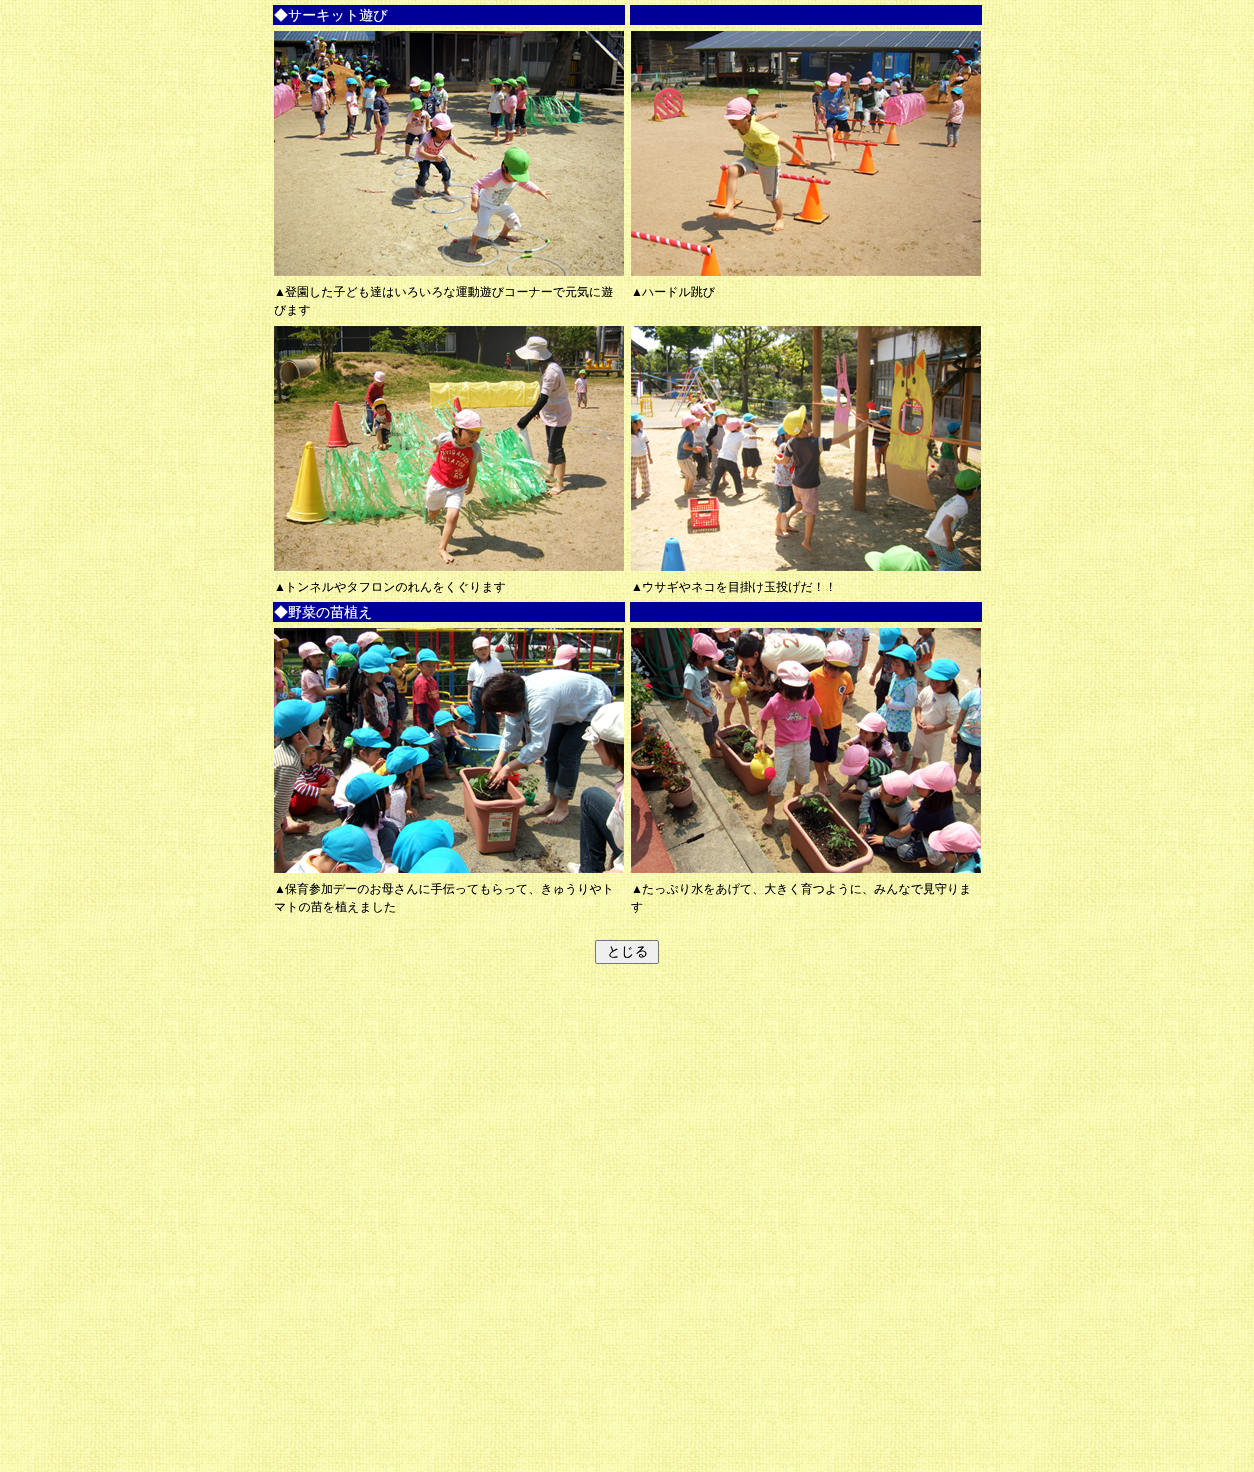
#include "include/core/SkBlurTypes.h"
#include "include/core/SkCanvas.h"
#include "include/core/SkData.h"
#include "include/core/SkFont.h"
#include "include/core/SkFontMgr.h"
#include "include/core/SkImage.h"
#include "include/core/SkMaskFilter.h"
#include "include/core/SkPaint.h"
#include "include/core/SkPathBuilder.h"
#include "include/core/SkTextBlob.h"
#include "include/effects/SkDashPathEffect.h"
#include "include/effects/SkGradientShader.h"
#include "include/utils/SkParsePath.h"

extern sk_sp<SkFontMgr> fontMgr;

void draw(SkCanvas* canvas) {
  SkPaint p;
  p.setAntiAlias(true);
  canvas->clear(SK_ColorWHITE);
  canvas->drawImageRect(SkImages::DeferredFromEncodedData(SkData::MakeFromFileName("images/1.png")), SkRect::MakeLTRB(0, 0, 1254, 1472), SkSamplingOptions());
  p.setColor(SkColorSetRGB(0, 0, 153));
  canvas->drawRect(SkRect::MakeLTRB(273, 5, 625, 25), p);
  canvas->drawRect(SkRect::MakeLTRB(630, 5, 982, 25), p);
  canvas->drawImageRect(SkImages::DeferredFromEncodedData(SkData::MakeFromFileName("images/2.png")), SkRect::MakeLTRB(274, 31, 624, 276), SkSamplingOptions());
  canvas->drawImageRect(SkImages::DeferredFromEncodedData(SkData::MakeFromFileName("images/3.png")), SkRect::MakeLTRB(631, 31, 981, 276), SkSamplingOptions());
  canvas->drawImageRect(SkImages::DeferredFromEncodedData(SkData::MakeFromFileName("images/4.png")), SkRect::MakeLTRB(274, 326, 624, 571), SkSamplingOptions());
  canvas->drawImageRect(SkImages::DeferredFromEncodedData(SkData::MakeFromFileName("images/5.png")), SkRect::MakeLTRB(631, 326, 981, 571), SkSamplingOptions());
  canvas->drawRect(SkRect::MakeLTRB(273, 602, 625, 622), p);
  canvas->drawRect(SkRect::MakeLTRB(630, 602, 982, 622), p);
  canvas->drawImageRect(SkImages::DeferredFromEncodedData(SkData::MakeFromFileName("images/6.png")), SkRect::MakeLTRB(274, 628, 624, 873), SkSamplingOptions());
  canvas->drawImageRect(SkImages::DeferredFromEncodedData(SkData::MakeFromFileName("images/7.png")), SkRect::MakeLTRB(631, 628, 981, 873), SkSamplingOptions());
  p.setColor(SkColorSetRGB(239, 239, 239));
  canvas->drawRoundRect(SkRect::MakeLTRB(595.5f, 940.5f, 658.5f, 963.5f), 1.5f, 1.5f, p);
  p.setStyle(SkPaint::kStroke_Style);
  p.setStrokeWidth(1);
  p.setColor(SkColorSetRGB(118, 118, 118));
  canvas->drawRoundRect(SkRect::MakeLTRB(595.5f, 940.5f, 658.5f, 963.5f), 1.5f, 1.5f, p);
  SkFont font1(fontMgr->matchFamilyStyle("WenQuanYi Zen Hei", SkFontStyle(500, SkFontStyle::kNormal_Width, SkFontStyle::kUpright_Slant)), 14);
  font1.setSubpixel(true);
  p.setStyle(SkPaint::kFill_Style);
  p.setColor(SK_ColorWHITE);
  canvas->drawString("◆サーキット遊び", 274, 20, font1, p);
  SkFont font2(fontMgr->matchFamilyStyle("Liberation Sans", SkFontStyle::Normal()), 12);
  font2.setSubpixel(true);
  p.setColor(SK_ColorBLACK);
  canvas->drawString("▲", 274, 296, font2, p);
  SkFont font3(fontMgr->matchFamilyStyle("WenQuanYi Zen Hei", SkFontStyle(500, SkFontStyle::kNormal_Width, SkFontStyle::kUpright_Slant)), 12);
  font3.setSubpixel(true);
  canvas->drawString("登園した子ども達はいろいろな運動遊びコーナーで元気に遊", 285, 296, font3, p);
  canvas->drawString("びます", 274, 314, font3, p);
  canvas->drawString("▲", 631, 296, font2, p);
  canvas->drawString("ハードル跳び", 642, 296, font3, p);
  canvas->drawString("▲", 274, 591, font2, p);
  canvas->drawString("トンネルやタフロンのれんをくぐります", 285, 591, font3, p);
  canvas->drawString("▲", 631, 591, font2, p);
  canvas->drawString("ウサギやネコを目掛け玉投げだ！！", 642, 591, font3, p);
  p.setColor(SK_ColorWHITE);
  canvas->drawString("◆野菜の苗植え", 274, 617, font1, p);
  p.setColor(SK_ColorBLACK);
  canvas->drawString("▲", 274, 893, font2, p);
  canvas->drawString("保育参加デーのお母さんに手伝ってもらって、きゅうりやト", 285, 893, font3, p);
  canvas->drawString("マトの苗を植えました", 274, 911, font3, p);
  canvas->drawString("▲", 631, 893, font2, p);
  canvas->drawString("たっぷり水をあげて、大きく育つように、みんなで見守りま", 642, 893, font3, p);
  canvas->drawString("す", 631, 911, font3, p);
  SkFont font4(fontMgr->matchFamilyStyle("WenQuanYi Zen Hei", SkFontStyle(500, SkFontStyle::kNormal_Width, SkFontStyle::kUpright_Slant)), 13.5f);
  font4.setSubpixel(true);
  canvas->drawString("とじる", 607, 956, font4, p);
}
